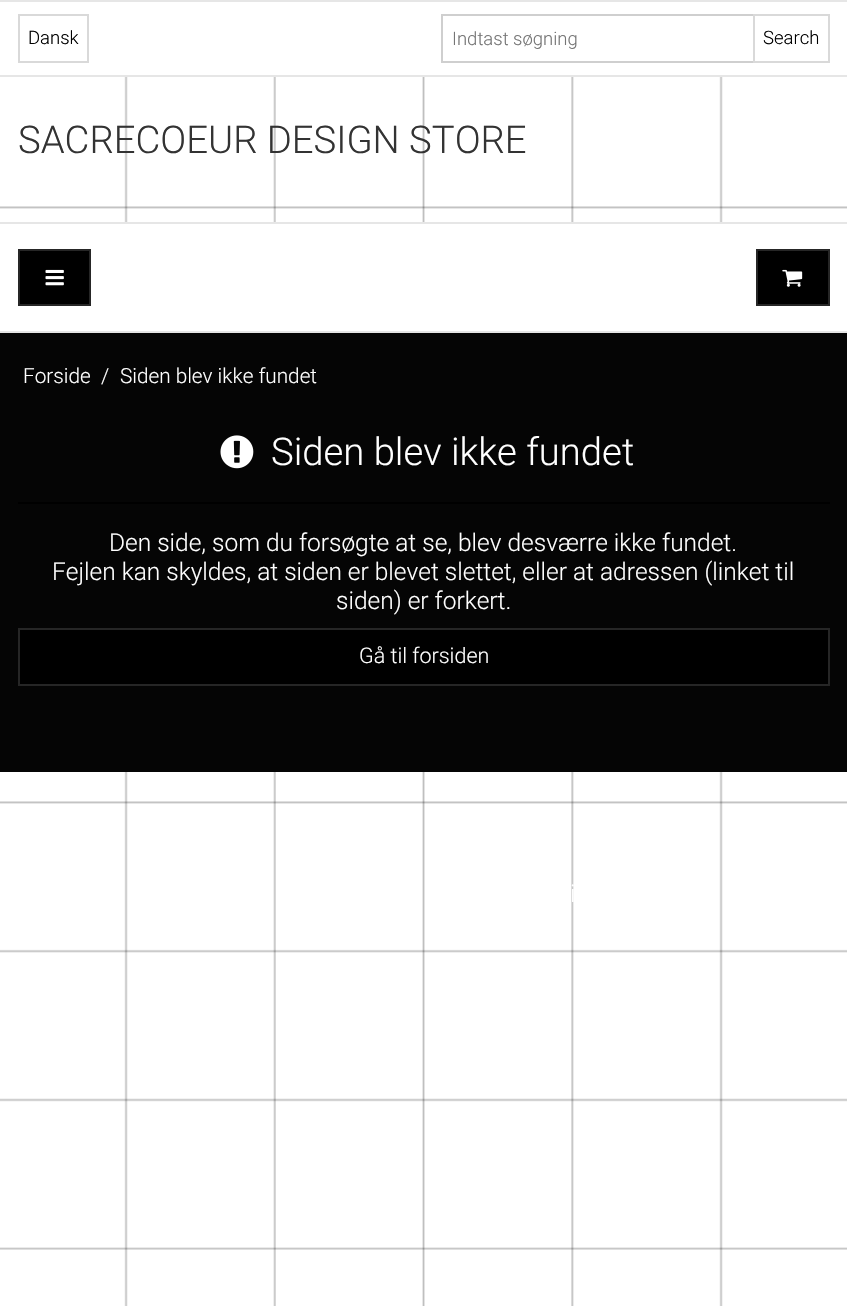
#include "include/core/SkBlurTypes.h"
#include "include/core/SkCanvas.h"
#include "include/core/SkData.h"
#include "include/core/SkFont.h"
#include "include/core/SkFontMgr.h"
#include "include/core/SkImage.h"
#include "include/core/SkMaskFilter.h"
#include "include/core/SkPaint.h"
#include "include/core/SkPathBuilder.h"
#include "include/core/SkTextBlob.h"
#include "include/effects/SkDashPathEffect.h"
#include "include/effects/SkGradientShader.h"
#include "include/utils/SkParsePath.h"

extern sk_sp<SkFontMgr> fontMgr;

void draw(SkCanvas* canvas) {
  SkPaint p;
  p.setAntiAlias(true);
  canvas->clear(SK_ColorWHITE);
  canvas->drawImageRect(SkImages::DeferredFromEncodedData(SkData::MakeFromFileName("images/1.png")), SkRect::MakeLTRB(0, 77, 847, 1306), SkSamplingOptions());
  p.setColor(SkColorSetRGB(230, 230, 230));
  canvas->drawRect(SkRect::MakeLTRB(0, 0, 847, 2), p);
  canvas->drawRect(SkRect::MakeLTRB(0, 75, 847, 77), p);
  p.setStyle(SkPaint::kStroke_Style);
  p.setStrokeWidth(2);
  p.setColor(SkColorSetRGB(217, 217, 217));
  canvas->drawRect(SkRect::MakeLTRB(19, 15, 88, 62), p);
  p.setStyle(SkPaint::kFill_Style);
  p.setColor(SkColorSetRGB(207, 207, 207));
  canvas->drawRect(SkRect::MakeLTRB(441, 14, 753, 16), p);
  canvas->drawRect(SkRect::MakeLTRB(441, 61, 753, 63), p);
  canvas->drawRect(SkRect::MakeLTRB(441, 14, 443, 63), p);
  p.setStyle(SkPaint::kStroke_Style);
  p.setColor(SkColorSetRGB(217, 217, 217));
  canvas->drawRect(SkRect::MakeLTRB(754, 15, 829, 62), p);
  p.setStyle(SkPaint::kFill_Style);
  p.setColor(SK_ColorWHITE);
  canvas->drawRect(SkRect::MakeLTRB(124, 224, 723, 331), p);
  p.setColor(SkColorSetRGB(230, 230, 230));
  canvas->drawRect(SkRect::MakeLTRB(0, 222, 847, 224), p);
  canvas->drawRect(SkRect::MakeLTRB(0, 331, 847, 333), p);
  p.setColor(SK_ColorBLACK);
  canvas->drawRect(SkRect::MakeLTRB(19, 250, 90, 305), p);
  p.setStyle(SkPaint::kStroke_Style);
  p.setColor(SkColorSetRGB(38, 38, 38));
  canvas->drawRect(SkRect::MakeLTRB(19, 250, 90, 305), p);
  canvas->drawImageRect(SkImages::DeferredFromEncodedData(SkData::MakeFromFileName("images/2.png")), SkRect::MakeLTRB(45, 269, 64, 286), SkSamplingOptions());
  p.setStyle(SkPaint::kFill_Style);
  p.setColor(SK_ColorBLACK);
  canvas->drawRect(SkRect::MakeLTRB(757, 250, 829, 305), p);
  p.setStyle(SkPaint::kStroke_Style);
  p.setColor(SkColorSetRGB(38, 38, 38));
  canvas->drawRect(SkRect::MakeLTRB(757, 250, 829, 305), p);
  canvas->drawImageRect(SkImages::DeferredFromEncodedData(SkData::MakeFromFileName("images/3.png")), SkRect::MakeLTRB(782, 269, 803, 287), SkSamplingOptions());
  p.setStyle(SkPaint::kFill_Style);
  p.setColor(SkColorSetRGB(5, 5, 5));
  canvas->drawRect(SkRect::MakeLTRB(0, 333, 847, 772), p);
  p.setColor(SK_ColorBLACK);
  canvas->drawRect(SkRect::MakeLTRB(18, 502, 830, 504), p);
  canvas->drawImageRect(SkImages::DeferredFromEncodedData(SkData::MakeFromFileName("images/4.png")), SkRect::MakeLTRB(220, 435, 254, 469), SkSamplingOptions());
  canvas->drawRect(SkRect::MakeLTRB(19, 629, 829, 685), p);
  p.setStyle(SkPaint::kStroke_Style);
  p.setColor(SkColorSetRGB(38, 38, 38));
  canvas->drawRect(SkRect::MakeLTRB(19, 629, 829, 685), p);
  SkFont font1(fontMgr->matchFamilyStyle("Roboto", SkFontStyle(300, SkFontStyle::kNormal_Width, SkFontStyle::kUpright_Slant)), 18.5f);
  font1.setSubpixel(true);
  p.setStyle(SkPaint::kFill_Style);
  p.setColor(SK_ColorBLACK);
  canvas->drawString("Dansk", 28, 44, font1, p);
  p.setColor(SkColorSetRGB(117, 117, 117));
  canvas->drawString("Indtast søgning", 452, 45, font1, p);
  p.setColor(SK_ColorBLACK);
  canvas->drawString("Search", 763, 44, font1, p);
  SkFont font2(fontMgr->matchFamilyStyle("Roboto", SkFontStyle(300, SkFontStyle::kNormal_Width, SkFontStyle::kUpright_Slant)), 38.25f);
  font2.setSubpixel(true);
  p.setColor(SkColorSetRGB(51, 51, 51));
  canvas->drawString("SACRECOEUR DESIGN STORE", 18, 153, font2, p);
  SkFont font3(fontMgr->matchFamilyStyle("Roboto", SkFontStyle(300, SkFontStyle::kNormal_Width, SkFontStyle::kUpright_Slant)), 20.75f);
  font3.setSubpixel(true);
  p.setColor(SK_ColorWHITE);
  canvas->drawString("Forside", 23, 383, font3, p);
  canvas->drawString("/", 101, 383, font3, p);
  canvas->drawString("Siden blev ikke fundet", 120, 383, font3, p);
  canvas->drawString("Siden blev ikke fundet", 271, 465, font2, p);
  SkFont font4(fontMgr->matchFamilyStyle("Roboto", SkFontStyle(300, SkFontStyle::kNormal_Width, SkFontStyle::kUpright_Slant)), 24.5f);
  font4.setSubpixel(true);
  canvas->drawString("Den side, som du forsøgte at se, blev desværre ikke fundet.", 109, 551, font4, p);
  canvas->drawString("Fejlen kan skyldes, at siden er blevet slettet, eller at adressen (linket til", 52, 580, font4, p);
  canvas->drawString("siden) er forkert.", 336, 609, font4, p);
  SkFont font5(fontMgr->matchFamilyStyle("Roboto", SkFontStyle(300, SkFontStyle::kNormal_Width, SkFontStyle::kUpright_Slant)), 21.5f);
  font5.setSubpixel(true);
  canvas->drawString("Gå til forsiden", 359, 663, font5, p);
  canvas->drawString("i", 570, 902, font4, p);
}
